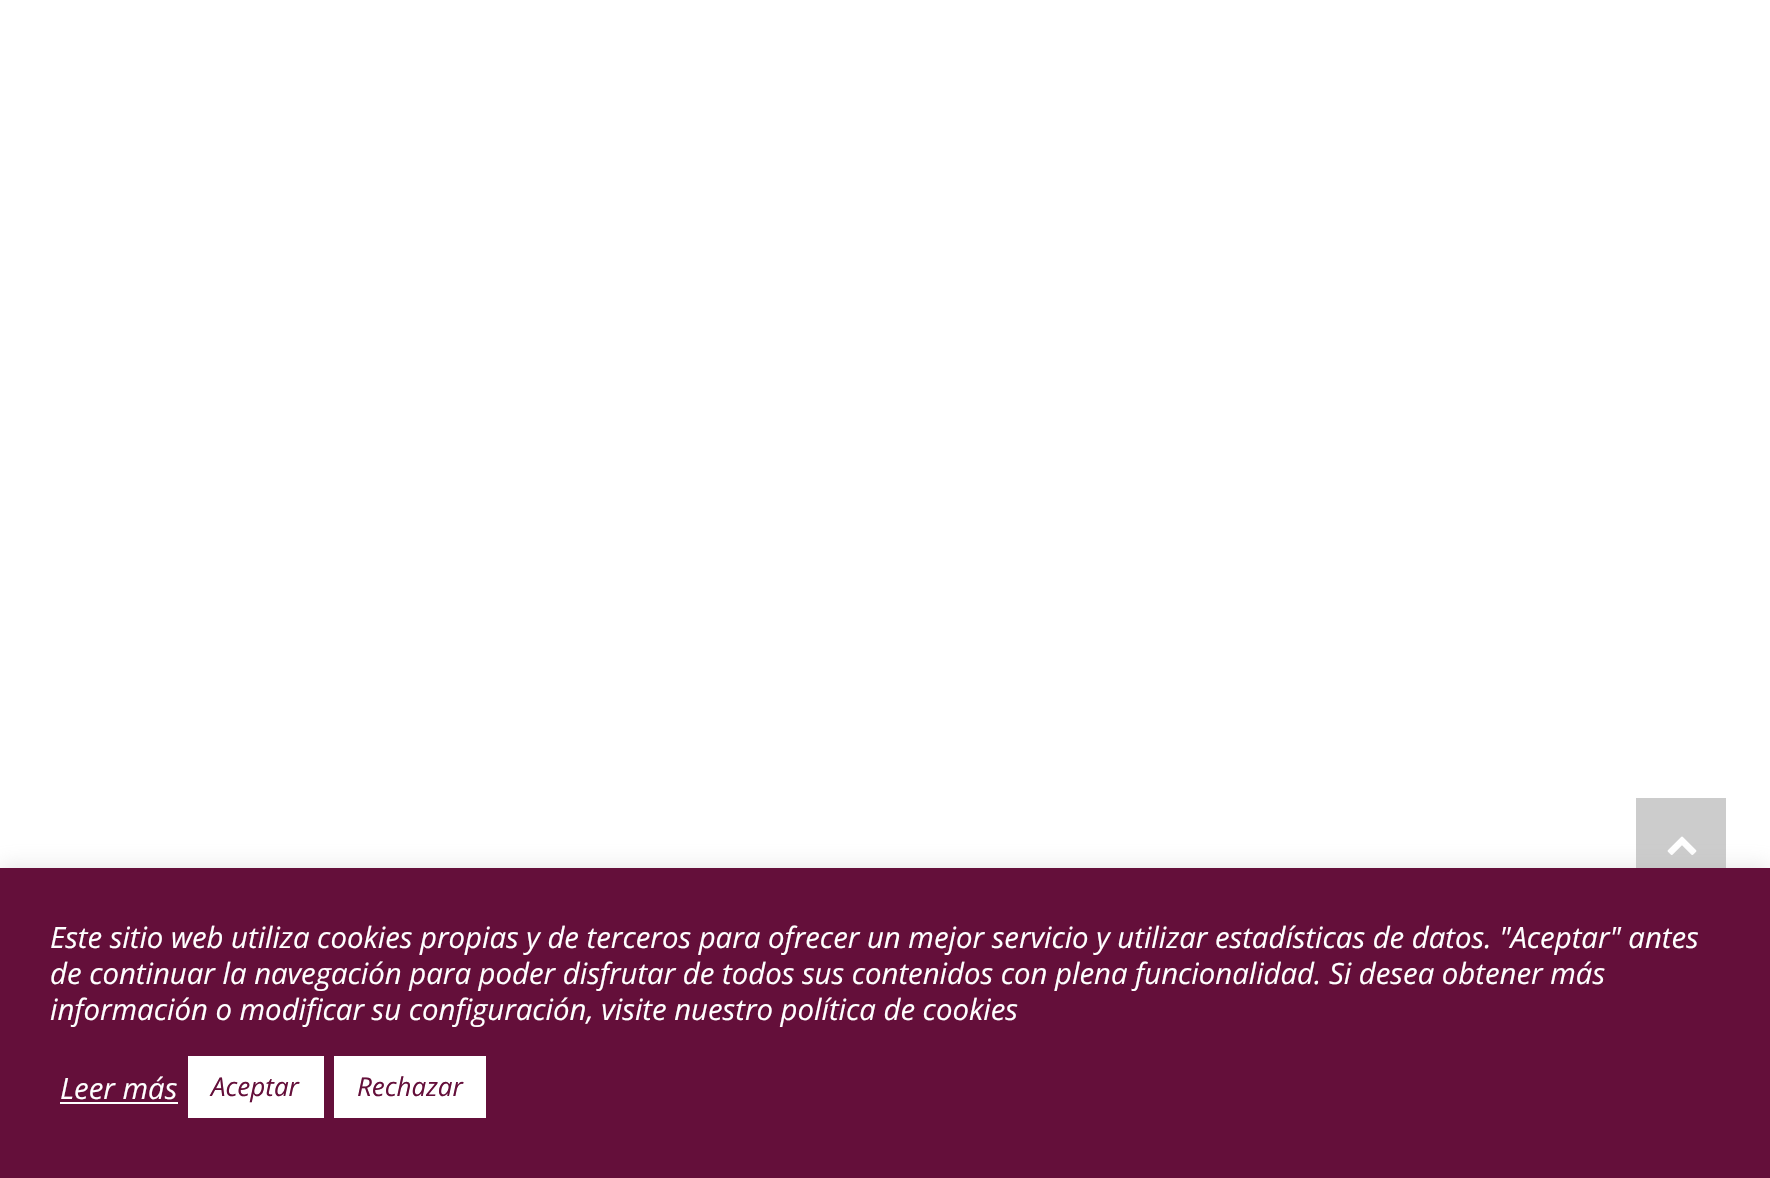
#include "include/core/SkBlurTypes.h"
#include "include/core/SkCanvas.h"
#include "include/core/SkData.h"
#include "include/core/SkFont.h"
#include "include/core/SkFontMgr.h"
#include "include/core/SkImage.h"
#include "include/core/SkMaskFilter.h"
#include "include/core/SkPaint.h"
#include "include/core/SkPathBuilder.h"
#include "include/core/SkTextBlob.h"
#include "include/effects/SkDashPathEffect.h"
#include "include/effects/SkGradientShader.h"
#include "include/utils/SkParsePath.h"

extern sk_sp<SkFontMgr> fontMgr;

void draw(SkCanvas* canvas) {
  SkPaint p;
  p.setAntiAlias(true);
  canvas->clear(SK_ColorWHITE);
  p.setColor(SkColorSetRGB(204, 204, 204));
  canvas->drawRect(SkRect::MakeLTRB(1636, 798, 1726, 868), p);
  canvas->drawImageRect(SkImages::DeferredFromEncodedData(SkData::MakeFromFileName("images/1.png")), SkRect::MakeLTRB(1667, 836, 1697, 855), SkSamplingOptions());
  p.setColor(SkColorSetARGB(77, 172, 171, 171));
  p.setMaskFilter(SkMaskFilter::MakeBlur(kNormal_SkBlurStyle, 10));
  canvas->drawRect(SkRect::MakeLTRB(0, 866, 1770, 1176), p);
  p.setMaskFilter(nullptr);
  p.setColor(SkColorSetRGB(100, 15, 58));
  canvas->drawRect(SkRect::MakeLTRB(0, 868, 1770, 1178), p);
  p.setColor(SK_ColorWHITE);
  canvas->drawRect(SkRect::MakeLTRB(60, 1102, 178, 1104), p);
  canvas->drawRect(SkRect::MakeLTRB(188, 1056, 324, 1118), p);
  canvas->drawRect(SkRect::MakeLTRB(334, 1056, 486, 1118), p);
  SkFont font1(fontMgr->matchFamilyStyle("Open Sans", SkFontStyle::Italic()), 29.33f);
  font1.setSubpixel(true);
  canvas->drawString("Este sitio web utiliza cookies propias y de terceros para ofrecer un mejor servicio y utilizar estadísticas de datos. \"Aceptar\" antes", 50, 948, font1, p);
  canvas->drawString("de continuar la navegación para poder disfrutar de todos sus contenidos con plena funcionalidad. Si desea obtener más", 50, 984, font1, p);
  canvas->drawString("información o modificar su configuración, visite nuestro política de cookies", 50, 1020, font1, p);
  canvas->drawString("Leer más", 60, 1099, font1, p);
  SkFont font2(fontMgr->matchFamilyStyle("Open Sans", SkFontStyle::Italic()), 26);
  font2.setSubpixel(true);
  p.setColor(SkColorSetRGB(100, 15, 58));
  canvas->drawString("Aceptar", 211, 1096, font2, p);
  canvas->drawString("Rechazar", 357, 1096, font2, p);
}
